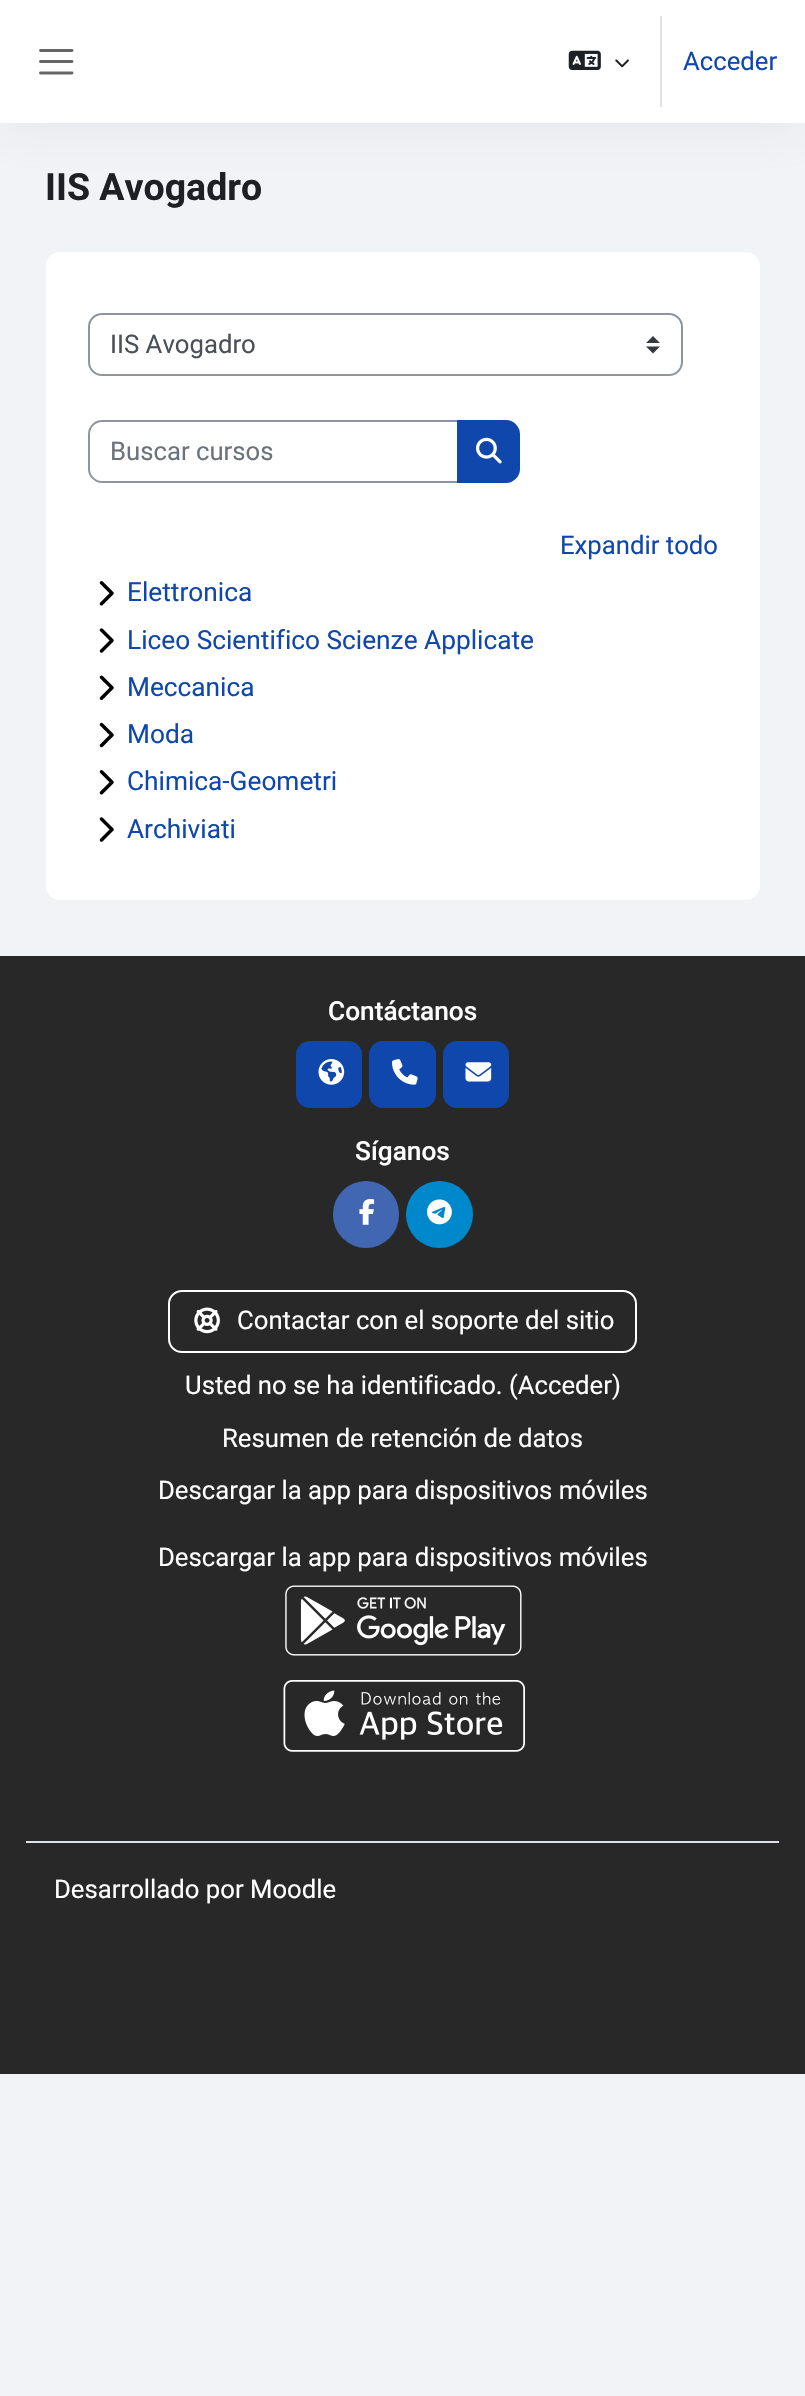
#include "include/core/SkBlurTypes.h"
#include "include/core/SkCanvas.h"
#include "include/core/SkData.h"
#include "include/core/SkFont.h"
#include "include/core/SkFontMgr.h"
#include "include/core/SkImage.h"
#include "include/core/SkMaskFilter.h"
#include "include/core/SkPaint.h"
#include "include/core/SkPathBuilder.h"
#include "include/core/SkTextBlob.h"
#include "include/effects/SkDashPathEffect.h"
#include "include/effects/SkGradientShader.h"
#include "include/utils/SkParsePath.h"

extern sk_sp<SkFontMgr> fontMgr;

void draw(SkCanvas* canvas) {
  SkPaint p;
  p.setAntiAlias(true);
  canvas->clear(SkColorSetRGB(242, 243, 247));
  p.setColor(SkColorSetARGB(33, 140, 152, 164));
  p.setMaskFilter(SkMaskFilter::MakeBlur(kNormal_SkBlurStyle, 21));
  canvas->drawRect(SkRect::MakeLTRB(0, 11, 805, 133), p);
  p.setMaskFilter(nullptr);
  p.setColor(SK_ColorWHITE);
  canvas->drawRect(SkRect::MakeLTRB(0, 0, 805, 123), p);
  p.setStyle(SkPaint::kStroke_Style);
  p.setStrokeWidth(2.9f);
  p.setStrokeCap(SkPaint::kRound_Cap);
  p.setColor(SkColorSetRGB(102, 102, 102));
  canvas->drawPath(SkPathBuilder().moveTo(40.5f, 50.5f).lineTo(72, 50.5f).moveTo(40.5f, 61.5f).lineTo(72, 61.5f).moveTo(40.5f, 73).lineTo(72, 73).detach(), p);
  canvas->drawImageRect(SkImages::DeferredFromEncodedData(SkData::MakeFromFileName("images/1.png")), SkRect::MakeLTRB(568, 50, 601, 70), SkSamplingOptions());
  canvas->drawImageRect(SkImages::DeferredFromEncodedData(SkData::MakeFromFileName("images/2.png")), SkRect::MakeLTRB(615, 59, 629, 68), SkSamplingOptions());
  p.setStyle(SkPaint::kFill_Style);
  p.setColor(SkColorSetRGB(222, 226, 230));
  canvas->drawRect(SkRect::MakeLTRB(660, 16, 662, 107), p);
  p.setColor(SK_ColorWHITE);
  canvas->drawRoundRect(SkRect::MakeLTRB(46, 252, 760, 900), 14, 14, p);
  p.setColor(SkColorSetRGB(52, 58, 64));
  canvas->drawPath(SkPathBuilder().moveTo(653, 336).lineTo(646, 343).lineTo(660, 343).close().moveTo(653, 353.5f).lineTo(646, 346.5f).lineTo(660, 346.5f).close().detach(), p);
  p.setStyle(SkPaint::kStroke_Style);
  p.setStrokeWidth(2);
  p.setStrokeCap(SkPaint::kButt_Cap);
  p.setColor(SkColorSetRGB(143, 149, 158));
  canvas->drawRoundRect(SkRect::MakeLTRB(89, 314, 682, 375), 13, 13, p);
  canvas->drawPath(SkPathBuilder().moveTo(102, 421).lineTo(458, 421).lineTo(458, 482).lineTo(102, 482).cubicTo(95, 482, 89, 476, 89, 469).lineTo(89, 434).cubicTo(89, 427, 95, 421, 102, 421).close().detach(), p);
  p.setStyle(SkPaint::kFill_Style);
  p.setColor(SkColorSetRGB(15, 71, 173));
  canvas->drawPath(SkPathBuilder().moveTo(458, 421).lineTo(506, 421).cubicTo(513, 421, 519, 427, 519, 434).lineTo(519, 469).cubicTo(519, 476, 513, 482, 506, 482).lineTo(458, 482).close().detach(), p);
  p.setStyle(SkPaint::kStroke_Style);
  canvas->drawPath(SkPathBuilder().moveTo(458, 421).lineTo(506, 421).cubicTo(513, 421, 519, 427, 519, 434).lineTo(519, 469).cubicTo(519, 476, 513, 482, 506, 482).lineTo(458, 482).close().detach(), p);
  canvas->drawImageRect(SkImages::DeferredFromEncodedData(SkData::MakeFromFileName("images/3.png")), SkRect::MakeLTRB(476, 437, 502, 464), SkSamplingOptions());
  canvas->drawImageRect(SkImages::DeferredFromEncodedData(SkData::MakeFromFileName("images/4.png")), SkRect::MakeLTRB(99, 581, 114, 606), SkSamplingOptions());
  canvas->drawImageRect(SkImages::DeferredFromEncodedData(SkData::MakeFromFileName("images/5.png")), SkRect::MakeLTRB(99, 628, 114, 653), SkSamplingOptions());
  canvas->drawImageRect(SkImages::DeferredFromEncodedData(SkData::MakeFromFileName("images/6.png")), SkRect::MakeLTRB(99, 675, 114, 700), SkSamplingOptions());
  canvas->drawImageRect(SkImages::DeferredFromEncodedData(SkData::MakeFromFileName("images/7.png")), SkRect::MakeLTRB(99, 722, 114, 748), SkSamplingOptions());
  canvas->drawImageRect(SkImages::DeferredFromEncodedData(SkData::MakeFromFileName("images/4.png")), SkRect::MakeLTRB(99, 770, 114, 795), SkSamplingOptions());
  canvas->drawImageRect(SkImages::DeferredFromEncodedData(SkData::MakeFromFileName("images/5.png")), SkRect::MakeLTRB(99, 817, 114, 842), SkSamplingOptions());
  p.setStyle(SkPaint::kFill_Style);
  p.setColor(SkColorSetRGB(40, 40, 41));
  canvas->drawRect(SkRect::MakeLTRB(0, 956, 805, 2074), p);
  p.setColor(SkColorSetRGB(15, 71, 173));
  canvas->drawRoundRect(SkRect::MakeLTRB(296, 1041, 362, 1108), 14, 14, p);
  canvas->drawImageRect(SkImages::DeferredFromEncodedData(SkData::MakeFromFileName("images/8.png")), SkRect::MakeLTRB(318, 1059, 345, 1085), SkSamplingOptions());
  canvas->drawRoundRect(SkRect::MakeLTRB(369, 1041, 436, 1108), 14, 14, p);
  canvas->drawImageRect(SkImages::DeferredFromEncodedData(SkData::MakeFromFileName("images/9.png")), SkRect::MakeLTRB(392, 1059, 418, 1085), SkSamplingOptions());
  canvas->drawRoundRect(SkRect::MakeLTRB(443, 1041, 509, 1108), 14, 14, p);
  canvas->drawImageRect(SkImages::DeferredFromEncodedData(SkData::MakeFromFileName("images/10.png")), SkRect::MakeLTRB(465, 1062, 492, 1082), SkSamplingOptions());
  p.setColor(SkColorSetRGB(65, 103, 178));
  canvas->drawRoundRect(SkRect::MakeLTRB(333, 1181, 399, 1248), 33, 33, p);
  canvas->drawImageRect(SkImages::DeferredFromEncodedData(SkData::MakeFromFileName("images/11.png")), SkRect::MakeLTRB(359, 1199, 375, 1225), SkSamplingOptions());
  p.setColor(SkColorSetRGB(0, 136, 204));
  canvas->drawCircle(439.5f, 1214.5f, 33.5f, p);
  canvas->drawImageRect(SkImages::DeferredFromEncodedData(SkData::MakeFromFileName("images/12.png")), SkRect::MakeLTRB(427, 1199, 452, 1225), SkSamplingOptions());
  p.setStyle(SkPaint::kStroke_Style);
  p.setColor(SK_ColorWHITE);
  canvas->drawRoundRect(SkRect::MakeLTRB(169, 1291, 636, 1352), 13, 13, p);
  canvas->drawImageRect(SkImages::DeferredFromEncodedData(SkData::MakeFromFileName("images/13.png")), SkRect::MakeLTRB(194, 1307, 220, 1334), SkSamplingOptions());
  canvas->drawImageRect(SkImages::DeferredFromEncodedData(SkData::MakeFromFileName("images/14.png")), SkRect::MakeLTRB(285, 1585, 522, 1656), SkSamplingOptions());
  canvas->drawImageRect(SkImages::DeferredFromEncodedData(SkData::MakeFromFileName("images/15.png")), SkRect::MakeLTRB(283, 1680, 525, 1752), SkSamplingOptions());
  p.setStyle(SkPaint::kFill_Style);
  p.setColor(SkColorSetRGB(222, 226, 230));
  canvas->drawRect(SkRect::MakeLTRB(26, 1841, 779, 1843), p);
  SkFont font1(fontMgr->matchFamilyStyle("Roboto", SkFontStyle::Normal()), 25.7f);
  font1.setSubpixel(true);
  p.setColor(SkColorSetRGB(15, 71, 173));
  canvas->drawString("Acceder", 683, 70, font1, p);
  SkFont font2(fontMgr->matchFamilyStyle("Roboto", SkFontStyle::Bold()), 37.5f);
  font2.setSubpixel(true);
  p.setColor(SkColorSetRGB(29, 33, 37));
  canvas->drawString("IIS Avogadro", 45, 200, font2, p);
  p.setColor(SkColorSetRGB(73, 80, 87));
  canvas->drawString("IIS Avogadro", 110, 353, font1, p);
  p.setColor(SkColorSetRGB(106, 115, 123));
  canvas->drawString("Buscar cursos", 110, 460, font1, p);
  p.setColor(SkColorSetRGB(15, 71, 173));
  canvas->drawString("Expandir todo", 560, 554, font1, p);
  SkFont font3(fontMgr->matchFamilyStyle("Roboto", SkFontStyle::Normal()), 26.25f);
  font3.setSubpixel(true);
  canvas->drawString("Elettronica", 127, 601, font3, p);
  canvas->drawString("Liceo Scientifico Scienze Applicate", 127, 649, font3, p);
  canvas->drawString("Meccanica", 127, 696, font3, p);
  canvas->drawString("Moda", 127, 743, font3, p);
  canvas->drawString("Chimica-Geometri", 127, 790, font3, p);
  canvas->drawString("Archiviati", 127, 838, font3, p);
  SkFont font4(fontMgr->matchFamilyStyle("Roboto", SkFontStyle(500, SkFontStyle::kNormal_Width, SkFontStyle::kUpright_Slant)), 26.25f);
  font4.setSubpixel(true);
  p.setColor(SK_ColorWHITE);
  canvas->drawString("Contáctanos", 328, 1020, font4, p);
  canvas->drawString("Síganos", 355, 1160, font4, p);
  canvas->drawString("Contactar con el soporte del sitio", 237, 1329, font1, p);
  canvas->drawString("Usted no se ha identificado. (Acceder)", 185, 1394, font1, p);
  canvas->drawString("Resumen de retención de datos", 222, 1447, font1, p);
  canvas->drawString("Descargar la app para dispositivos móviles", 158, 1499, font1, p);
  canvas->drawString("Descargar la app para dispositivos móviles", 158, 1566, font1, p);
  canvas->drawString("Desarrollado por Moodle", 54, 1898, font1, p);
}
